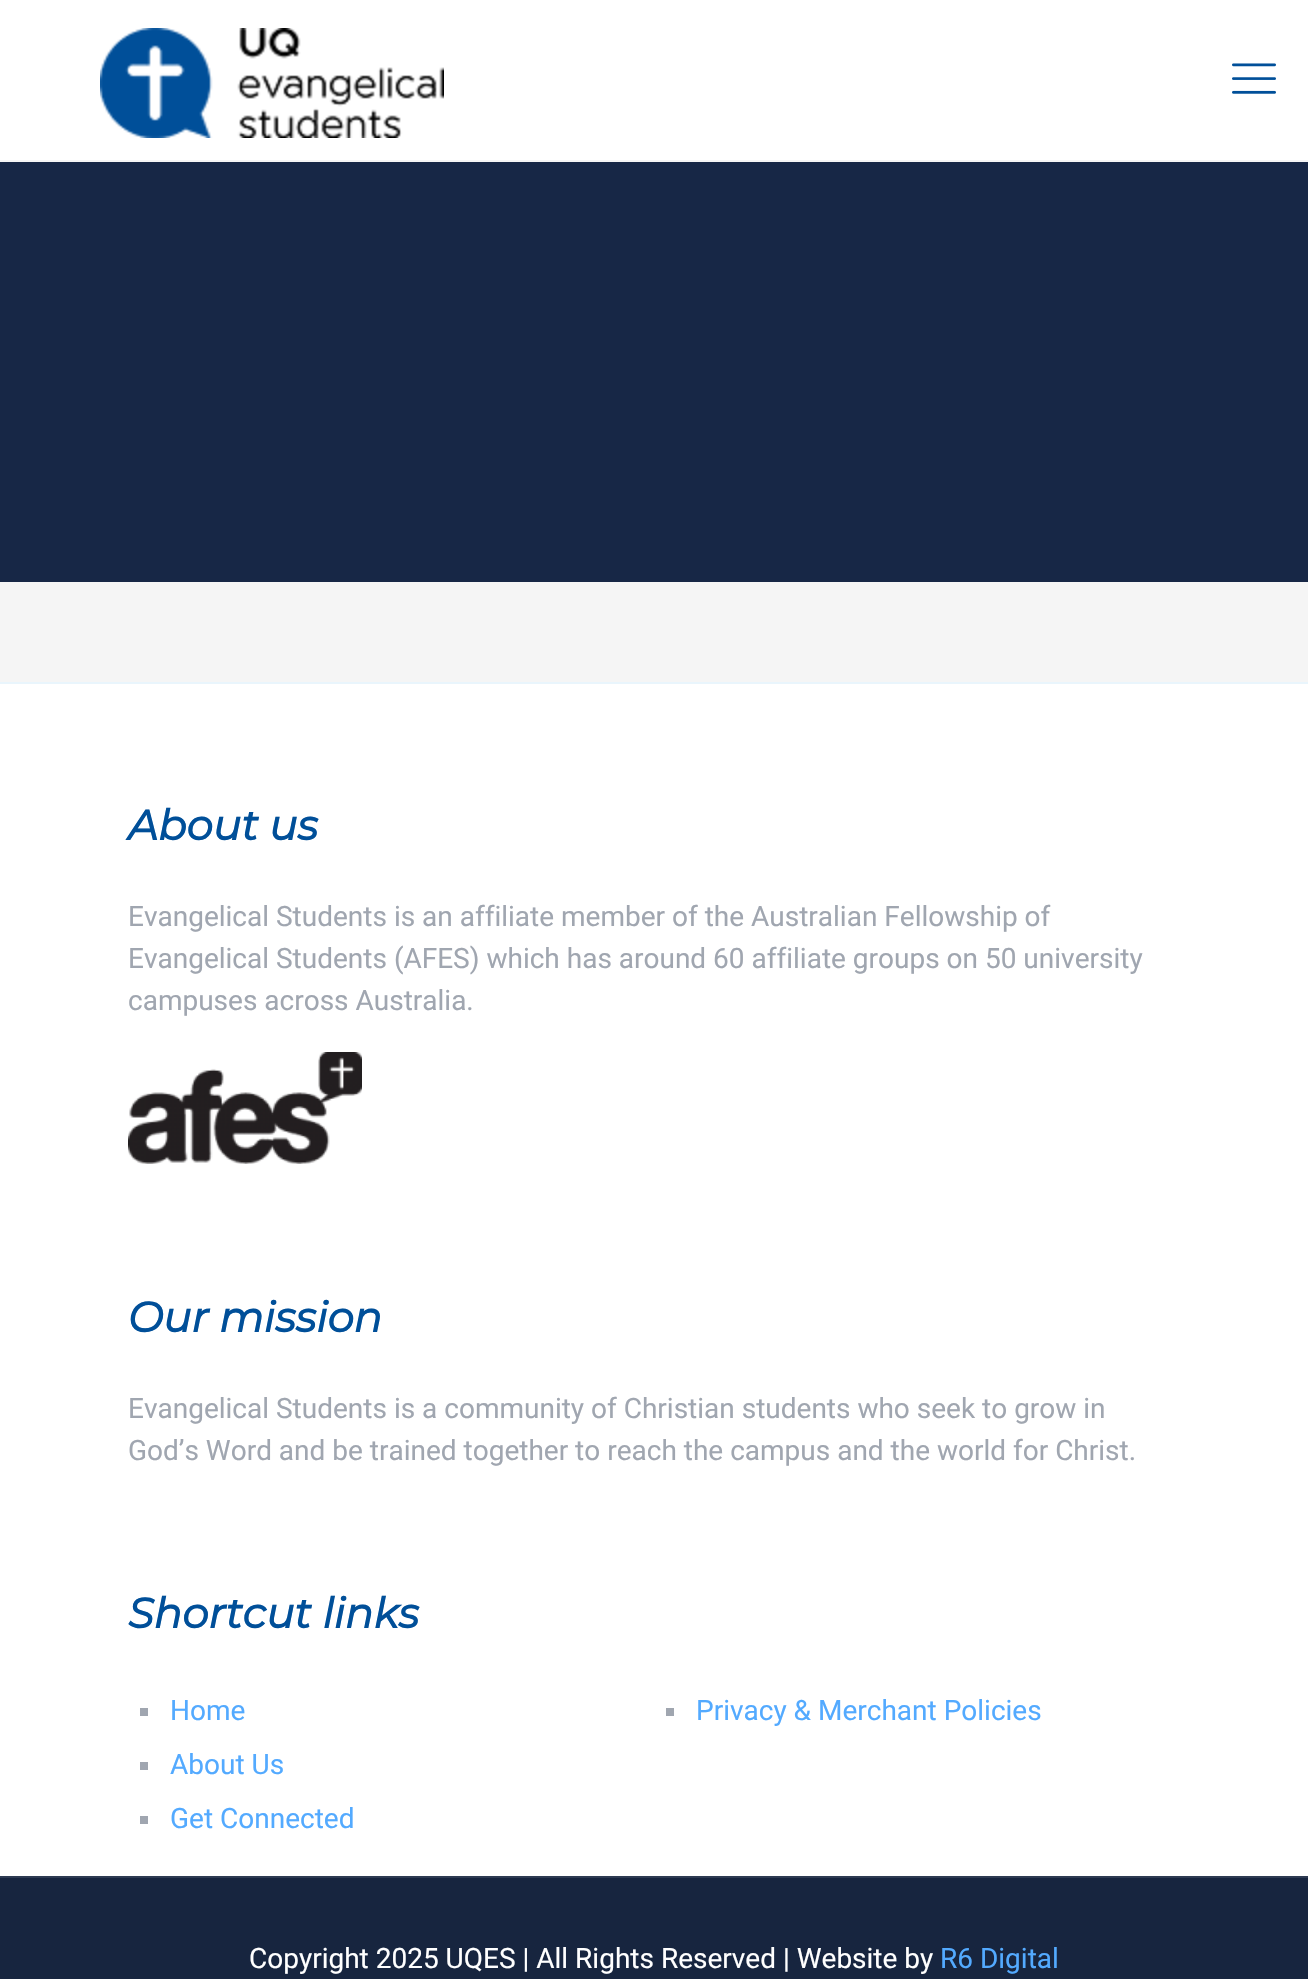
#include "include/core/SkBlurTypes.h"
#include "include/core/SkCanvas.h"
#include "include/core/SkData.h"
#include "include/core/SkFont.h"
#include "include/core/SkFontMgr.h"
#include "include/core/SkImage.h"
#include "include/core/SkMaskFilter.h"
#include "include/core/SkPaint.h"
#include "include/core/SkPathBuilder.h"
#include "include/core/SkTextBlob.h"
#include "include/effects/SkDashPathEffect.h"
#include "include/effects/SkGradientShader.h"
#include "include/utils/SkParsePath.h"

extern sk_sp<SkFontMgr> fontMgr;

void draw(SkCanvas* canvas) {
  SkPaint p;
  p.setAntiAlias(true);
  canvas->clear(SkColorSetRGB(245, 245, 245));
  p.setColor(SkColorSetRGB(23, 39, 70));
  canvas->drawRect(SkRect::MakeLTRB(0, 162, 1308, 582), p);
  p.setColor(SK_ColorWHITE);
  canvas->drawRect(SkRect::MakeLTRB(0, 0, 1308, 160), p);
  canvas->drawImageRect(SkImages::DeferredFromEncodedData(SkData::MakeFromFileName("images/1.png")), SkRect::MakeLTRB(100, 28, 444, 138), SkSamplingOptions());
  canvas->drawImageRect(SkImages::DeferredFromEncodedData(SkData::MakeFromFileName("images/2.png")), SkRect::MakeLTRB(1232, 63, 1276, 94), SkSamplingOptions());
  canvas->drawRect(SkRect::MakeLTRB(0, 684, 1308, 1876), p);
  p.setColor(SkColorSetRGB(233, 245, 252));
  canvas->drawRect(SkRect::MakeLTRB(0, 682, 1308, 684), p);
  canvas->drawImageRect(SkImages::DeferredFromEncodedData(SkData::MakeFromFileName("images/3.png")), SkRect::MakeLTRB(128, 1052, 362, 1164), SkSamplingOptions());
  p.setColor(SkColorSetRGB(160, 166, 176));
  canvas->drawRect(SkRect::MakeLTRB(140, 1708, 148, 1716), p);
  canvas->drawRect(SkRect::MakeLTRB(140, 1762, 148, 1770), p);
  canvas->drawRect(SkRect::MakeLTRB(140, 1816, 148, 1824), p);
  canvas->drawRect(SkRect::MakeLTRB(666, 1708, 674, 1716), p);
  p.setColor(SkColorSetRGB(23, 37, 63));
  canvas->drawRect(SkRect::MakeLTRB(0, 1878, 1308, 1979), p);
  p.setColor(SkColorSetRGB(46, 59, 82));
  canvas->drawRect(SkRect::MakeLTRB(0, 1876, 1308, 1878), p);
  SkFont font1(fontMgr->matchFamilyStyle("Montserrat", SkFontStyle::BoldItalic()), 42);
  font1.setSubpixel(true);
  p.setColor(SkColorSetRGB(0, 79, 153));
  canvas->drawString("About us", 128, 840, font1, p);
  SkFont font2(fontMgr->matchFamilyStyle("Roboto", SkFontStyle::Normal()), 28);
  font2.setSubpixel(true);
  p.setColor(SkColorSetRGB(160, 166, 176));
  canvas->drawString("Evangelical Students is an affiliate member of the Australian Fellowship of", 128, 926, font2, p);
  canvas->drawString("Evangelical Students (AFES) which has around 60 affiliate groups on 50 university", 128, 968, font2, p);
  canvas->drawString("campuses across Australia.", 128, 1010, font2, p);
  p.setColor(SkColorSetRGB(0, 79, 153));
  canvas->drawString("Our mission", 128, 1332, font1, p);
  p.setColor(SkColorSetRGB(160, 166, 176));
  canvas->drawString("Evangelical Students is a community of Christian students who seek to grow in", 128, 1418, font2, p);
  canvas->drawString("God’s Word and be trained together to reach the campus and the world for Christ.", 128, 1460, font2, p);
  p.setColor(SkColorSetRGB(0, 79, 153));
  canvas->drawString("Shortcut links", 128, 1628, font1, p);
  p.setColor(SkColorSetRGB(83, 170, 255));
  canvas->drawString("Home", 170, 1720, font2, p);
  canvas->drawString("About Us", 170, 1774, font2, p);
  canvas->drawString("Get Connected", 170, 1828, font2, p);
  canvas->drawString("Privacy & Merchant Policies", 696, 1720, font2, p);
  p.setColor(SK_ColorWHITE);
  canvas->drawString("Copyright 2025 UQES | All Rights Reserved | Website by", 249, 1968, font2, p);
  p.setColor(SkColorSetRGB(83, 170, 255));
  canvas->drawString("R6 Digital", 940, 1968, font2, p);
}
